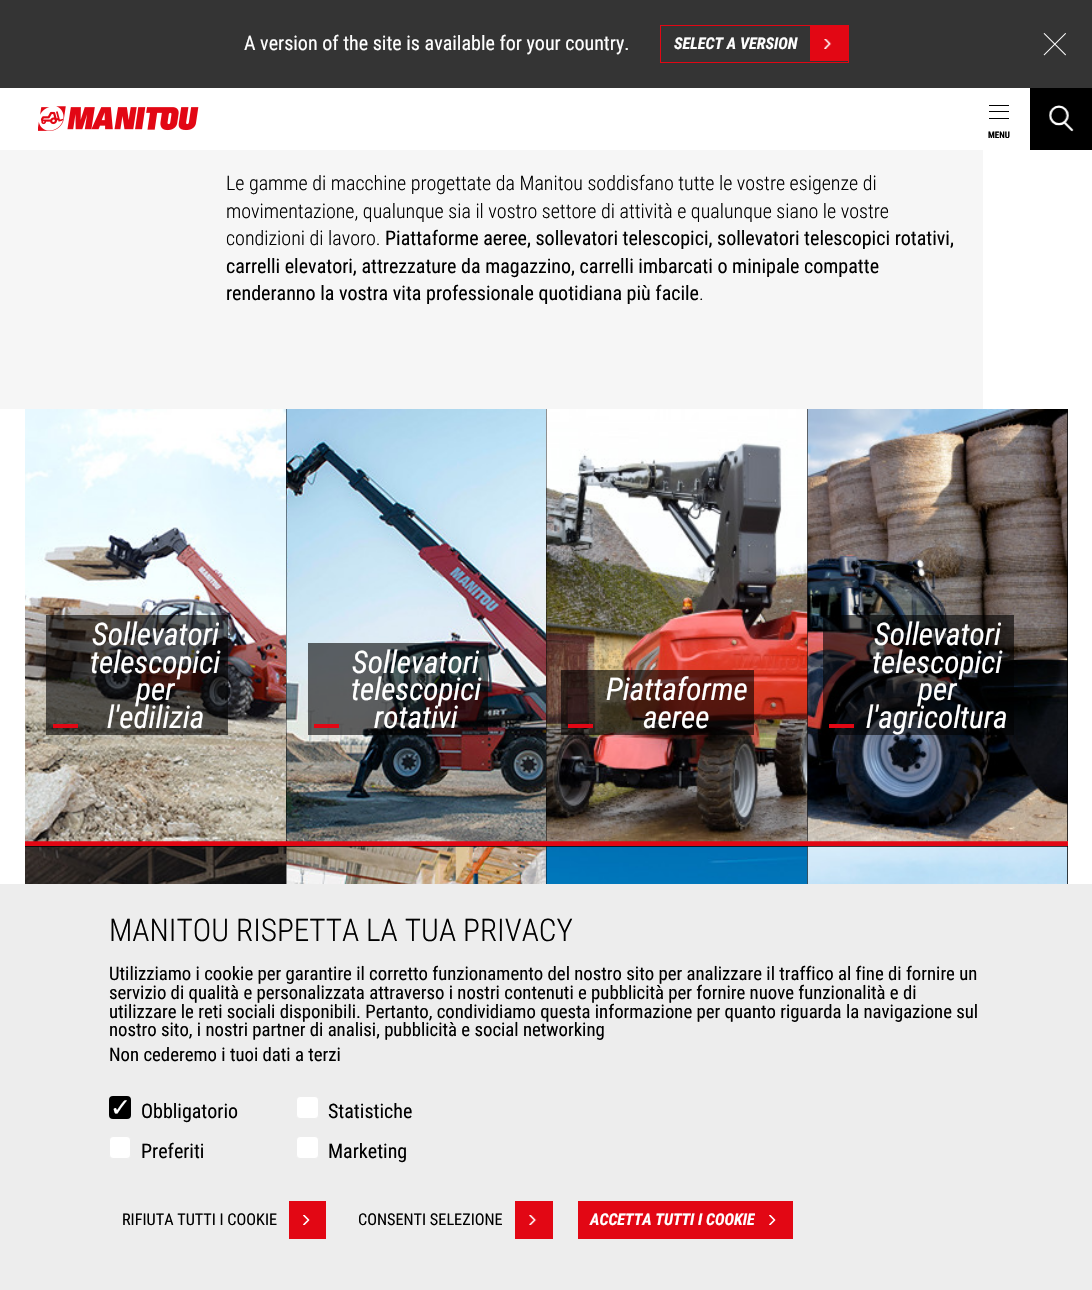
#include "include/core/SkBlurTypes.h"
#include "include/core/SkCanvas.h"
#include "include/core/SkData.h"
#include "include/core/SkFont.h"
#include "include/core/SkFontMgr.h"
#include "include/core/SkImage.h"
#include "include/core/SkMaskFilter.h"
#include "include/core/SkPaint.h"
#include "include/core/SkPathBuilder.h"
#include "include/core/SkTextBlob.h"
#include "include/effects/SkDashPathEffect.h"
#include "include/effects/SkGradientShader.h"
#include "include/utils/SkParsePath.h"

extern sk_sp<SkFontMgr> fontMgr;

void draw(SkCanvas* canvas) {
  SkPaint p;
  p.setAntiAlias(true);
  canvas->clear(SK_ColorWHITE);
  p.setColor(SkColorSetRGB(52, 52, 52));
  canvas->drawRect(SkRect::MakeLTRB(0, 0, 1092, 88), p);
  p.setStyle(SkPaint::kStroke_Style);
  p.setStrokeWidth(1);
  p.setColor(SkColorSetRGB(226, 7, 20));
  canvas->drawRect(SkRect::MakeLTRB(660.5f, 25.5f, 848.5f, 62.5f), p);
  p.setStyle(SkPaint::kFill_Style);
  canvas->drawRect(SkRect::MakeLTRB(810, 26, 848, 61), p);
  canvas->drawImageRect(SkImages::DeferredFromEncodedData(SkData::MakeFromFileName("images/1.png")), SkRect::MakeLTRB(824, 39, 832, 49), SkSamplingOptions());
  canvas->drawImageRect(SkImages::DeferredFromEncodedData(SkData::MakeFromFileName("images/2.png")), SkRect::MakeLTRB(1043, 33, 1066, 56), SkSamplingOptions());
  canvas->drawImageRect(SkImages::DeferredFromEncodedData(SkData::MakeFromFileName("images/3.png")), SkRect::MakeLTRB(38, 106, 199, 131), SkSamplingOptions());
  p.setColor(SK_ColorBLACK);
  canvas->drawRect(SkRect::MakeLTRB(989, 111, 1009, 112), p);
  canvas->drawRect(SkRect::MakeLTRB(989, 105, 1009, 106), p);
  canvas->drawRect(SkRect::MakeLTRB(989, 118, 1009, 119), p);
  canvas->drawRect(SkRect::MakeLTRB(1030, 88, 1092, 150), p);
  canvas->drawImageRect(SkImages::DeferredFromEncodedData(SkData::MakeFromFileName("images/4.png")), SkRect::MakeLTRB(1049, 105, 1074, 132), SkSamplingOptions());
  p.setColor(SkColorSetRGB(246, 246, 246));
  canvas->drawRect(SkRect::MakeLTRB(0, 150, 983, 409), p);
  p.setColor(SkColorSetRGB(226, 7, 20));
  canvas->drawRect(SkRect::MakeLTRB(25, 841, 1068, 846), p);
  canvas->drawImageRect(SkImages::DeferredFromEncodedData(SkData::MakeFromFileName("images/5.png")), SkRect::MakeLTRB(25, 409, 286, 842), SkSamplingOptions());
  p.setColor(SkColorSetARGB(153, 0, 0, 0));
  canvas->drawRect(SkRect::MakeLTRB(46, 615, 228, 735), p);
  p.setColor(SkColorSetRGB(226, 7, 20));
  canvas->drawRect(SkRect::MakeLTRB(53, 724, 78, 728), p);
  p.setColor(SK_ColorBLACK);
  canvas->drawRect(SkRect::MakeLTRB(286, 409, 287, 841), p);
  canvas->drawImageRect(SkImages::DeferredFromEncodedData(SkData::MakeFromFileName("images/6.png")), SkRect::MakeLTRB(286, 409, 546, 842), SkSamplingOptions());
  p.setColor(SkColorSetARGB(153, 0, 0, 0));
  canvas->drawRect(SkRect::MakeLTRB(308, 643, 488, 735), p);
  p.setColor(SkColorSetRGB(226, 7, 20));
  canvas->drawRect(SkRect::MakeLTRB(314, 724, 339, 728), p);
  p.setColor(SK_ColorBLACK);
  canvas->drawRect(SkRect::MakeLTRB(546, 409, 808, 841), p);
  canvas->drawImageRect(SkImages::DeferredFromEncodedData(SkData::MakeFromFileName("images/7.png")), SkRect::MakeLTRB(546, 409, 808, 842), SkSamplingOptions());
  p.setColor(SkColorSetARGB(153, 0, 0, 0));
  canvas->drawRect(SkRect::MakeLTRB(561, 670, 754, 735), p);
  p.setColor(SkColorSetRGB(226, 7, 20));
  canvas->drawRect(SkRect::MakeLTRB(568, 724, 593, 728), p);
  p.setColor(SK_ColorBLACK);
  canvas->drawRect(SkRect::MakeLTRB(1067, 409, 1068, 841), p);
  canvas->drawImageRect(SkImages::DeferredFromEncodedData(SkData::MakeFromFileName("images/8.png")), SkRect::MakeLTRB(807, 409, 1068, 842), SkSamplingOptions());
  p.setColor(SkColorSetARGB(153, 0, 0, 0));
  canvas->drawRect(SkRect::MakeLTRB(823, 615, 1014, 735), p);
  p.setColor(SkColorSetRGB(226, 7, 20));
  canvas->drawRect(SkRect::MakeLTRB(829, 724, 854, 728), p);
  p.setColor(SK_ColorBLACK);
  canvas->drawRect(SkRect::MakeLTRB(25, 846, 286, 847), p);
  canvas->drawImageRect(SkImages::DeferredFromEncodedData(SkData::MakeFromFileName("images/9.png")), SkRect::MakeLTRB(25, 846, 286, 884), SkSamplingOptions());
  canvas->drawRect(SkRect::MakeLTRB(286, 846, 1068, 884), p);
  canvas->drawImageRect(SkImages::DeferredFromEncodedData(SkData::MakeFromFileName("images/10.png")), SkRect::MakeLTRB(286, 846, 546, 884), SkSamplingOptions());
  canvas->drawImageRect(SkImages::DeferredFromEncodedData(SkData::MakeFromFileName("images/11.png")), SkRect::MakeLTRB(546, 846, 808, 884), SkSamplingOptions());
  canvas->drawImageRect(SkImages::DeferredFromEncodedData(SkData::MakeFromFileName("images/12.png")), SkRect::MakeLTRB(807, 846, 1068, 884), SkSamplingOptions());
  p.setColor(SkColorSetRGB(237, 237, 237));
  canvas->drawRect(SkRect::MakeLTRB(0, 884, 1092, 1290), p);
  p.setColor(SK_ColorBLACK);
  canvas->drawRoundRect(SkRect::MakeLTRB(109, 1096, 131, 1119), 4, 4, p);
  p.setColor(SK_ColorWHITE);
  canvas->drawRoundRect(SkRect::MakeLTRB(296.5f, 1096.5f, 318.5f, 1118.5f), 3.5f, 3.5f, p);
  p.setStyle(SkPaint::kStroke_Style);
  p.setColor(SkColorSetRGB(237, 237, 237));
  canvas->drawRoundRect(SkRect::MakeLTRB(296.5f, 1096.5f, 318.5f, 1118.5f), 3.5f, 3.5f, p);
  p.setStyle(SkPaint::kFill_Style);
  p.setColor(SK_ColorWHITE);
  canvas->drawRoundRect(SkRect::MakeLTRB(109.5f, 1136.5f, 130.5f, 1158.5f), 3.5f, 3.5f, p);
  p.setStyle(SkPaint::kStroke_Style);
  p.setColor(SkColorSetRGB(237, 237, 237));
  canvas->drawRoundRect(SkRect::MakeLTRB(109.5f, 1136.5f, 130.5f, 1158.5f), 3.5f, 3.5f, p);
  p.setStyle(SkPaint::kFill_Style);
  p.setColor(SK_ColorWHITE);
  canvas->drawRoundRect(SkRect::MakeLTRB(296.5f, 1136.5f, 318.5f, 1158.5f), 3.5f, 3.5f, p);
  p.setStyle(SkPaint::kStroke_Style);
  p.setColor(SkColorSetRGB(237, 237, 237));
  canvas->drawRoundRect(SkRect::MakeLTRB(296.5f, 1136.5f, 318.5f, 1158.5f), 3.5f, 3.5f, p);
  p.setStyle(SkPaint::kFill_Style);
  p.setColor(SkColorSetRGB(226, 7, 20));
  canvas->drawRect(SkRect::MakeLTRB(289, 1201, 326, 1239), p);
  canvas->drawImageRect(SkImages::DeferredFromEncodedData(SkData::MakeFromFileName("images/13.png")), SkRect::MakeLTRB(303, 1215, 310, 1225), SkSamplingOptions());
  canvas->drawRect(SkRect::MakeLTRB(515, 1201, 553, 1239), p);
  canvas->drawImageRect(SkImages::DeferredFromEncodedData(SkData::MakeFromFileName("images/14.png")), SkRect::MakeLTRB(529, 1215, 537, 1225), SkSamplingOptions());
  canvas->drawRect(SkRect::MakeLTRB(578, 1201, 755, 1239), p);
  SkFont font1(fontMgr->matchFamilyStyle("Roboto Condensed", SkFontStyle::Normal()), 20);
  font1.setSubpixel(true);
  p.setColor(SK_ColorWHITE);
  canvas->drawString("A version of the site is available for your country.", 244, 50, font1, p);
  SkFont font2(fontMgr->matchFamilyStyle("Roboto Condensed", SkFontStyle::BoldItalic()), 16.25f);
  font2.setSubpixel(true);
  canvas->drawString("SELECT A VERSION", 674, 49, font2, p);
  SkFont font3(fontMgr->matchFamilyStyle("Roboto Condensed", SkFontStyle::Bold()), 9);
  font3.setSubpixel(true);
  p.setColor(SK_ColorBLACK);
  canvas->drawString("MENU", 988, 138, font3, p);
  SkFont font4(fontMgr->matchFamilyStyle("Roboto Condensed", SkFontStyle(300, SkFontStyle::kNormal_Width, SkFontStyle::kUpright_Slant)), 20);
  font4.setSubpixel(true);
  canvas->drawString("Le gamme di macchine progettate da Manitou soddisfano tutte le vostre esigenze di", 226, 190, font4, p);
  canvas->drawString("movimentazione, qualunque sia il vostro settore di attività e qualunque siano le vostre", 226, 218, font4, p);
  canvas->drawString("condizioni di lavoro.", 226, 245, font4, p);
  canvas->drawString("Piattaforme aeree, sollevatori telescopici, sollevatori telescopici rotativi,", 385, 245, font1, p);
  canvas->drawString("carrelli elevatori, attrezzature da magazzino, carrelli imbarcati o minipale compatte", 226, 273, font1, p);
  canvas->drawString("renderanno la vostra vita professionale quotidiana più facile", 226, 300, font1, p);
  canvas->drawString(".", 699, 300, font4, p);
  SkFont font5(fontMgr->matchFamilyStyle("Roboto Condensed", SkFontStyle::Italic()), 31.25f);
  font5.setSubpixel(true);
  p.setColor(SK_ColorWHITE);
  canvas->drawString("Sollevatori", 92, 645, font5, p);
  canvas->drawString("telescopici", 90, 673, font5, p);
  canvas->drawString("per", 136, 700, font5, p);
  canvas->drawString("l'edilizia", 107, 728, font5, p);
  canvas->drawString("Sollevatori", 352, 673, font5, p);
  canvas->drawString("telescopici", 351, 700, font5, p);
  canvas->drawString("rotativi", 374, 728, font5, p);
  canvas->drawString("Piattaforme", 606, 700, font5, p);
  canvas->drawString("aeree", 643, 728, font5, p);
  canvas->drawString("Sollevatori", 874, 645, font5, p);
  canvas->drawString("telescopici", 872, 673, font5, p);
  canvas->drawString("per", 918, 700, font5, p);
  canvas->drawString("l'agricoltura", 866, 728, font5, p);
  SkFont font6(fontMgr->matchFamilyStyle("Roboto Condensed", SkFontStyle(300, SkFontStyle::kNormal_Width, SkFontStyle::kUpright_Slant)), 31.25f);
  font6.setSubpixel(true);
  p.setColor(SK_ColorBLACK);
  canvas->drawString("MANITOU RISPETTA LA TUA PRIVACY", 109, 941, font6, p);
  SkFont font7(fontMgr->matchFamilyStyle("Roboto Condensed", SkFontStyle::Normal()), 18.75f);
  font7.setSubpixel(true);
  canvas->drawString("Utilizziamo i cookie per garantire il corretto funzionamento del nostro sito per analizzare il traffico al fine di fornire un", 109, 980, font7, p);
  canvas->drawString("servizio di qualità e personalizzata attraverso i nostri contenuti e pubblicità per fornire nuove funzionalità e di", 109, 999, font7, p);
  canvas->drawString("utilizzare le reti sociali disponibili. Pertanto, condividiamo questa informazione per quanto riguarda la navigazione sul", 109, 1018, font7, p);
  canvas->drawString("nostro sito, i nostri partner di analisi, pubblicità e social networking", 109, 1036, font7, p);
  canvas->drawString("Non cederemo i tuoi dati a terzi", 109, 1061, font7, p);
  SkFont font8(fontMgr->matchFamilyStyle("DejaVu Sans", SkFontStyle::Normal()), 25);
  font8.setSubpixel(true);
  p.setColor(SK_ColorWHITE);
  canvas->drawString("✓", 110, 1116, font8, p);
  p.setColor(SK_ColorBLACK);
  canvas->drawString("Obbligatorio", 141, 1118, font1, p);
  canvas->drawString("Statistiche", 328, 1118, font1, p);
  canvas->drawString("Preferiti", 141, 1158, font1, p);
  canvas->drawString("Marketing", 328, 1158, font1, p);
  SkFont font9(fontMgr->matchFamilyStyle("Roboto Condensed", SkFontStyle::Normal()), 16.25f);
  font9.setSubpixel(true);
  canvas->drawString("RIFIUTA TUTTI I COOKIE", 122, 1225, font9, p);
  canvas->drawString("CONSENTI SELEZIONE", 358, 1225, font9, p);
  p.setColor(SK_ColorWHITE);
  canvas->drawString("ACCETTA TUTTI I COOKIE", 590, 1225, font2, p);
  p.setColor(SkColorSetRGB(226, 7, 20));
  canvas->drawRect(SkRect::MakeLTRB(755, 1201, 793, 1239), p);
  canvas->drawImageRect(SkImages::DeferredFromEncodedData(SkData::MakeFromFileName("images/13.png")), SkRect::MakeLTRB(769, 1215, 776, 1225), SkSamplingOptions());
}
